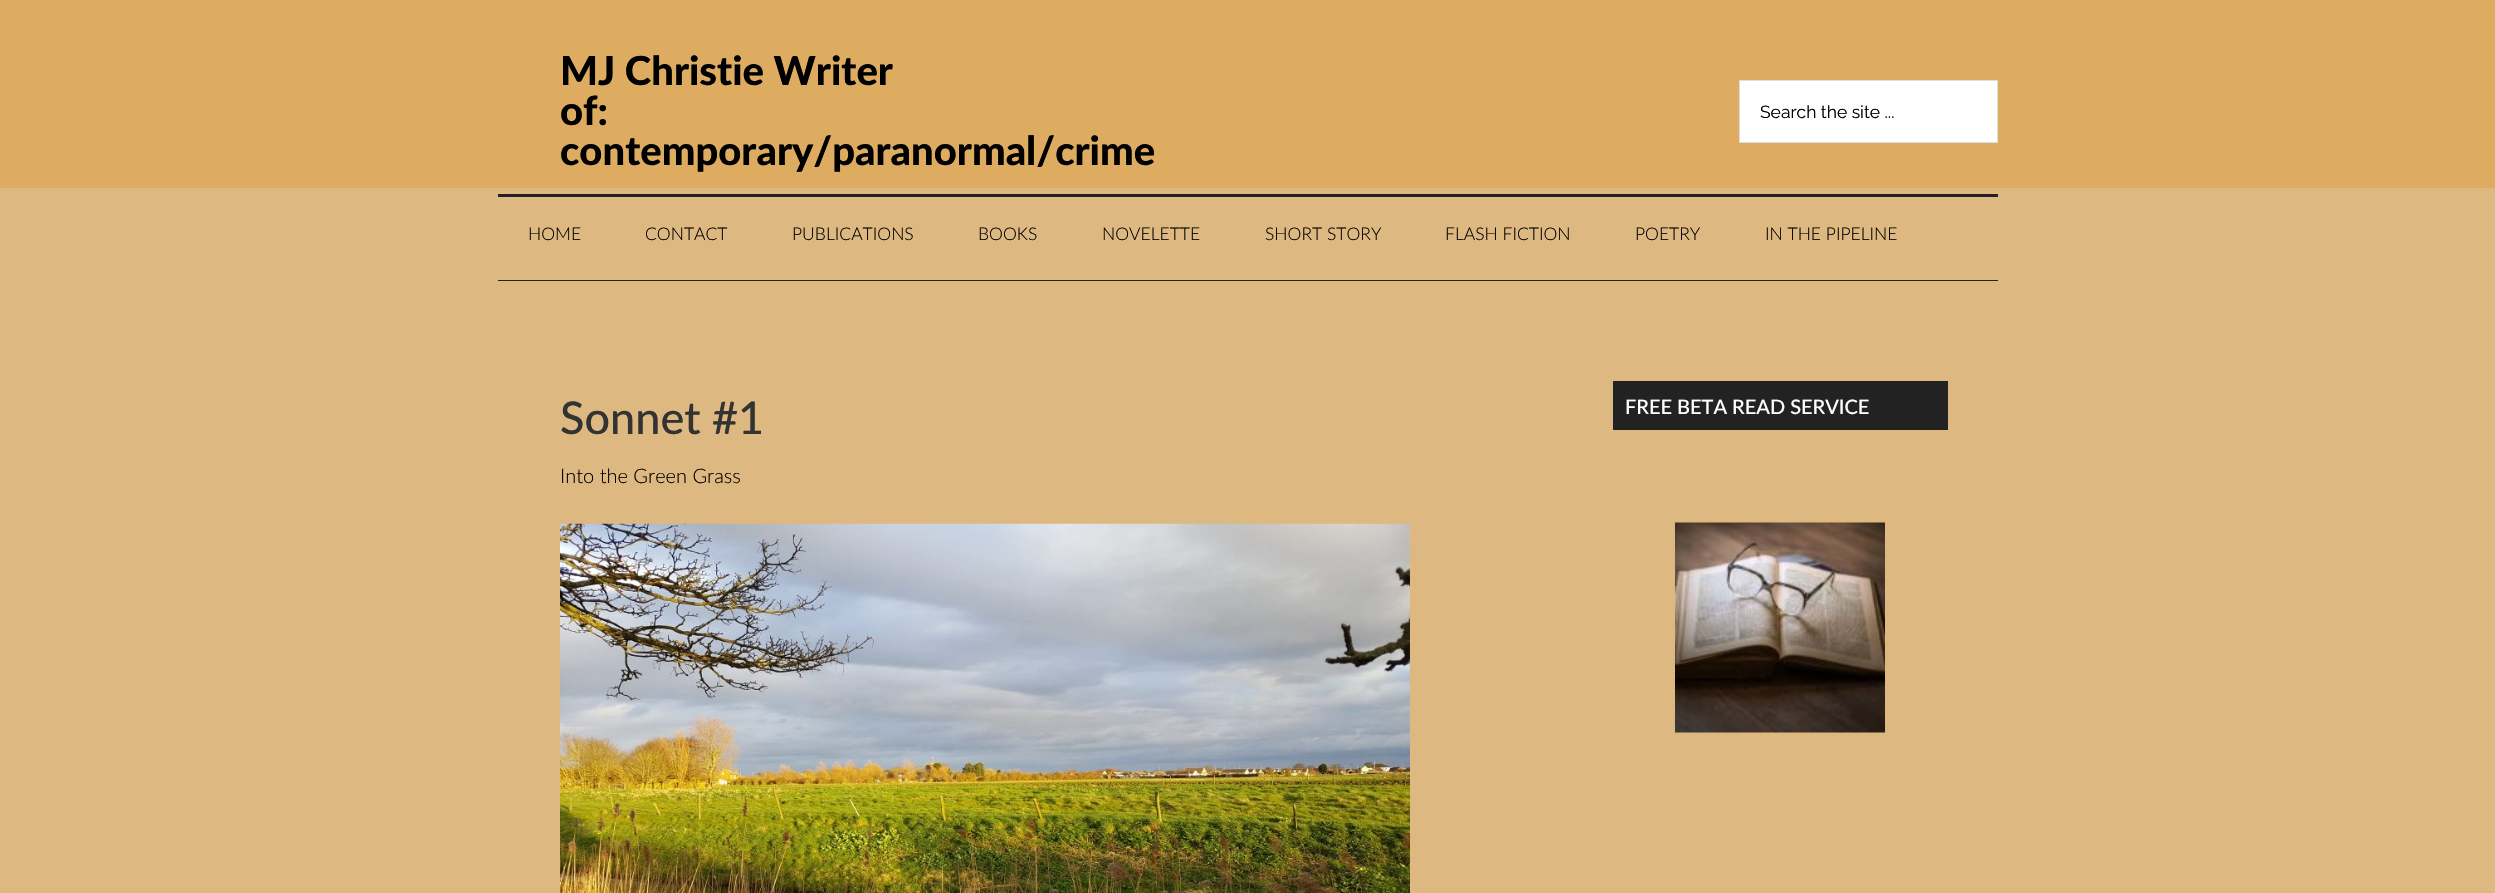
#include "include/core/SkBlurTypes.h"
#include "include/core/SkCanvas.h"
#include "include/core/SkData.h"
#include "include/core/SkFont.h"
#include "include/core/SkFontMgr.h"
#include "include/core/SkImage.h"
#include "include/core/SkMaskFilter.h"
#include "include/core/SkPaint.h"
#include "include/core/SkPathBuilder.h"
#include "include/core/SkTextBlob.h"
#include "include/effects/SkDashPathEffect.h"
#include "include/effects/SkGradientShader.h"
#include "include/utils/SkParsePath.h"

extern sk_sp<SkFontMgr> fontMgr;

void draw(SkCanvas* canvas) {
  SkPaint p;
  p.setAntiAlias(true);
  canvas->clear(SkColorSetRGB(221, 184, 128));
  p.setColor(SkColorSetRGB(221, 172, 97));
  canvas->drawRect(SkRect::MakeLTRB(0, 0, 2495, 188), p);
  p.setColor(SkColorSetRGB(34, 34, 34));
  canvas->drawRect(SkRect::MakeLTRB(498, 194, 1998, 197), p);
  p.setColor(SK_ColorWHITE);
  canvas->drawRect(SkRect::MakeLTRB(1739.5f, 80.5f, 1997.5f, 142.5f), p);
  p.setStyle(SkPaint::kStroke_Style);
  p.setStrokeWidth(1);
  p.setColor(SkColorSetRGB(221, 221, 221));
  canvas->drawRect(SkRect::MakeLTRB(1739.5f, 80.5f, 1997.5f, 142.5f), p);
  p.setStyle(SkPaint::kFill_Style);
  p.setColor(SkColorSetRGB(34, 34, 34));
  canvas->drawRect(SkRect::MakeLTRB(498, 280, 1998, 281), p);
  canvas->drawImageRect(SkImages::DeferredFromEncodedData(SkData::MakeFromFileName("images/1.png")), SkRect::MakeLTRB(560, 523, 1410, 893), SkSamplingOptions());
  canvas->drawRect(SkRect::MakeLTRB(1613, 381, 1948, 430), p);
  canvas->drawImageRect(SkImages::DeferredFromEncodedData(SkData::MakeFromFileName("images/2.png")), SkRect::MakeLTRB(1675, 522, 1885, 733), SkSamplingOptions());
  SkFont font1(fontMgr->matchFamilyStyle("Lato", SkFontStyle(900, SkFontStyle::kNormal_Width, SkFontStyle::kUpright_Slant)), 40);
  font1.setSubpixel(true);
  p.setColor(SK_ColorBLACK);
  canvas->drawString("MJ Christie Writer", 560, 85, font1, p);
  canvas->drawString("of:", 560, 125, font1, p);
  canvas->drawString("contemporary/paranormal/crime", 560, 165, font1, p);
  SkFont font2(fontMgr->matchFamilyStyle("Raleway", SkFontStyle::Normal()), 17.5f);
  font2.setSubpixel(true);
  canvas->drawString("Search the site ...", 1760, 118, font2, p);
  SkFont font3(fontMgr->matchFamilyStyle("Lato", SkFontStyle(300, SkFontStyle::kNormal_Width, SkFontStyle::kUpright_Slant)), 17.5f);
  font3.setSubpixel(true);
  canvas->drawString("HOME", 528, 240, font3, p);
  canvas->drawString("CONTACT", 645, 240, font3, p);
  canvas->drawString("PUBLICATIONS", 792, 240, font3, p);
  canvas->drawString("BOOKS", 978, 240, font3, p);
  canvas->drawString("NOVELETTE", 1102, 240, font3, p);
  canvas->drawString("SHORT STORY", 1265, 240, font3, p);
  canvas->drawString("FLASH FICTION", 1445, 240, font3, p);
  canvas->drawString("POETRY", 1635, 240, font3, p);
  canvas->drawString("IN THE PIPELINE", 1765, 240, font3, p);
  SkFont font4(fontMgr->matchFamilyStyle("Lato", SkFontStyle(500, SkFontStyle::kNormal_Width, SkFontStyle::kUpright_Slant)), 45);
  font4.setSubpixel(true);
  p.setColor(SkColorSetRGB(51, 51, 51));
  canvas->drawString("Sonnet #1", 560, 434, font4, p);
  SkFont font5(fontMgr->matchFamilyStyle("Lato", SkFontStyle(300, SkFontStyle::kNormal_Width, SkFontStyle::kUpright_Slant)), 20);
  font5.setSubpixel(true);
  p.setColor(SK_ColorBLACK);
  canvas->drawString("Into the Green Grass", 560, 483, font5, p);
  SkFont font6(fontMgr->matchFamilyStyle("Lato", SkFontStyle(500, SkFontStyle::kNormal_Width, SkFontStyle::kUpright_Slant)), 20);
  font6.setSubpixel(true);
  p.setColor(SK_ColorWHITE);
  canvas->drawString("FREE BETA READ SERVICE", 1625, 414, font6, p);
}
